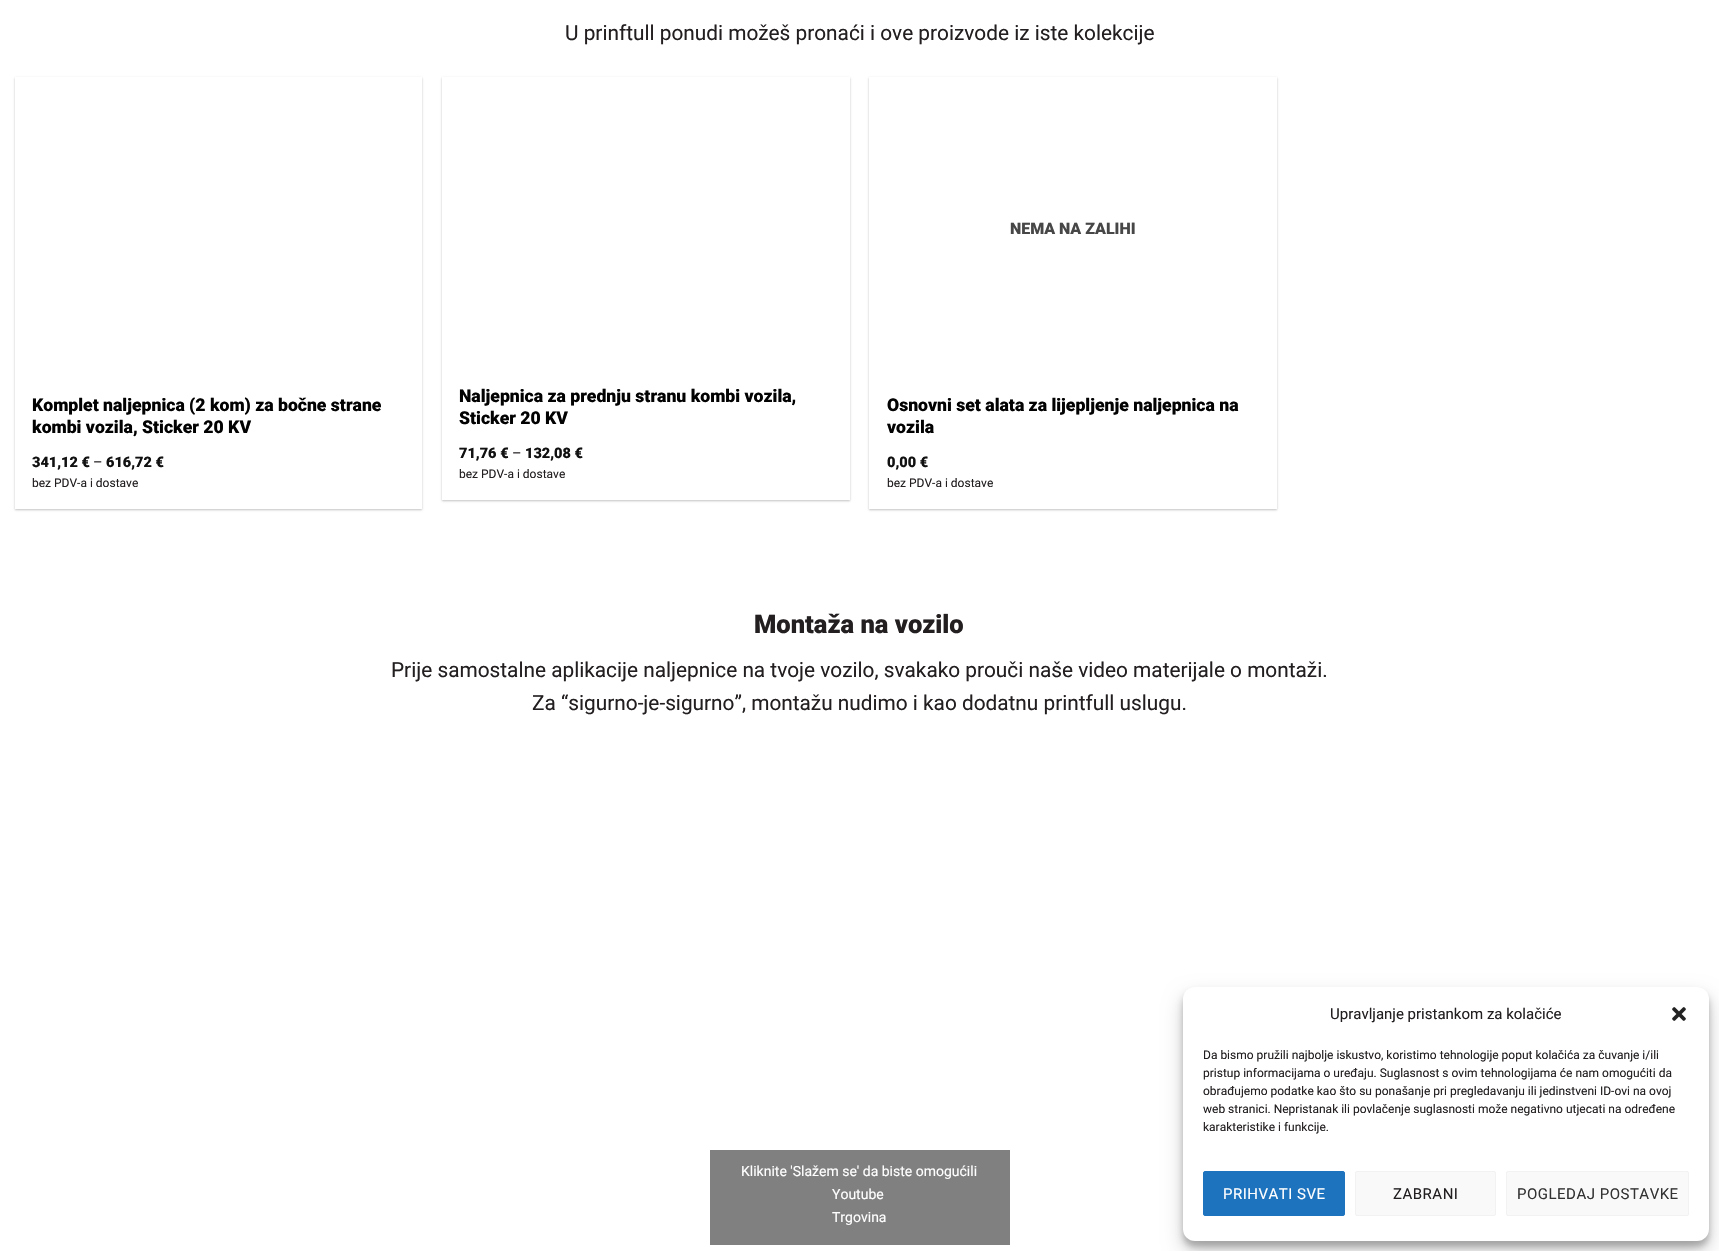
#include "include/core/SkBlurTypes.h"
#include "include/core/SkCanvas.h"
#include "include/core/SkData.h"
#include "include/core/SkFont.h"
#include "include/core/SkFontMgr.h"
#include "include/core/SkImage.h"
#include "include/core/SkMaskFilter.h"
#include "include/core/SkPaint.h"
#include "include/core/SkPathBuilder.h"
#include "include/core/SkTextBlob.h"
#include "include/effects/SkDashPathEffect.h"
#include "include/effects/SkGradientShader.h"
#include "include/utils/SkParsePath.h"

extern sk_sp<SkFontMgr> fontMgr;

void draw(SkCanvas* canvas) {
  SkPaint p;
  p.setAntiAlias(true);
  auto spacedText = [&](const char* s, float x, float y, const SkFont& font, const SkPaint& ink, float letter, float word) {
    std::vector<SkGlyphID> glyphs(font.countText(s, strlen(s), SkTextEncoding::kUTF8));
    std::vector<float> xs(glyphs.size());
    font.textToGlyphs(s, strlen(s), SkTextEncoding::kUTF8, glyphs);
    font.getXPos(glyphs, xs, x);
    float extra = 0;
    for (size_t i = 0; i < glyphs.size(); i++) {
      xs[i] += extra;
      extra += letter + word * (glyphs[i] == font.unicharToGlyph(' '));
    }
    canvas->drawTextBlob(SkTextBlob::MakeFromPosHGlyphs(glyphs, xs, y, font), 0, 0, ink);
  };
  canvas->clear(SK_ColorWHITE);
  canvas->save();
  canvas->clipPath(SkPathBuilder(SkPathFillType::kEvenOdd).moveTo(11, 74).lineTo(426, 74).lineTo(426, 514).lineTo(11, 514).close().moveTo(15, 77).lineTo(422, 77).lineTo(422, 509).lineTo(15, 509).close().detach(), true);
  p.setColor(SkColorSetARGB(61, 0, 0, 0));
  p.setMaskFilter(SkMaskFilter::MakeBlur(kNormal_SkBlurStyle, 1));
  canvas->drawRect(SkRect::MakeLTRB(15, 78, 422, 510), p);
  p.setMaskFilter(nullptr);
  canvas->restore();
  canvas->save();
  canvas->clipPath(SkPathBuilder(SkPathFillType::kEvenOdd).moveTo(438, 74).lineTo(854, 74).lineTo(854, 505).lineTo(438, 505).close().moveTo(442, 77).lineTo(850, 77).lineTo(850, 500).lineTo(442, 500).close().detach(), true);
  p.setMaskFilter(SkMaskFilter::MakeBlur(kNormal_SkBlurStyle, 1));
  canvas->drawRect(SkRect::MakeLTRB(442, 78, 850, 501), p);
  p.setMaskFilter(nullptr);
  canvas->restore();
  canvas->save();
  canvas->clipPath(SkPathBuilder(SkPathFillType::kEvenOdd).moveTo(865, 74).lineTo(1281, 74).lineTo(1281, 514).lineTo(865, 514).close().moveTo(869, 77).lineTo(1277, 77).lineTo(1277, 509).lineTo(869, 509).close().detach(), true);
  p.setMaskFilter(SkMaskFilter::MakeBlur(kNormal_SkBlurStyle, 1));
  canvas->drawRect(SkRect::MakeLTRB(869, 78, 1277, 510), p);
  p.setMaskFilter(nullptr);
  canvas->restore();
  p.setColor(SkColorSetRGB(128, 128, 128));
  canvas->drawRect(SkRect::MakeLTRB(710, 1150, 1010, 1245), p);
  p.setColor(SkColorSetARGB(59, 0, 0, 0));
  p.setMaskFilter(SkMaskFilter::MakeBlur(kNormal_SkBlurStyle, 3));
  canvas->drawRoundRect(SkRect::MakeLTRB(1183, 993, 1709, 1247), 12, 12, p);
  p.setMaskFilter(nullptr);
  p.setColor(SkColorSetARGB(48, 0, 0, 0));
  p.setMaskFilter(SkMaskFilter::MakeBlur(kNormal_SkBlurStyle, 10));
  canvas->drawRoundRect(SkRect::MakeLTRB(1183, 997, 1709, 1251), 12, 12, p);
  p.setMaskFilter(nullptr);
  p.setColor(SK_ColorWHITE);
  canvas->drawRoundRect(SkRect::MakeLTRB(1183, 987, 1709, 1241), 12, 12, p);
  canvas->drawImageRect(SkImages::DeferredFromEncodedData(SkData::MakeFromFileName("images/1.png")), SkRect::MakeLTRB(1672, 1007, 1686, 1021), SkSamplingOptions());
  p.setColor(SkColorSetRGB(30, 115, 190));
  canvas->drawRoundRect(SkRect::MakeLTRB(1203.5f, 1171.5f, 1344.5f, 1215.5f), 1.5f, 1.5f, p);
  p.setStyle(SkPaint::kStroke_Style);
  p.setStrokeWidth(1);
  canvas->drawRoundRect(SkRect::MakeLTRB(1203.5f, 1171.5f, 1344.5f, 1215.5f), 1.5f, 1.5f, p);
  p.setStyle(SkPaint::kFill_Style);
  p.setColor(SkColorSetRGB(249, 249, 249));
  canvas->drawRoundRect(SkRect::MakeLTRB(1355.5f, 1171.5f, 1495.5f, 1215.5f), 1.5f, 1.5f, p);
  p.setStyle(SkPaint::kStroke_Style);
  p.setColor(SkColorSetRGB(242, 242, 242));
  canvas->drawRoundRect(SkRect::MakeLTRB(1355.5f, 1171.5f, 1495.5f, 1215.5f), 1.5f, 1.5f, p);
  p.setStyle(SkPaint::kFill_Style);
  p.setColor(SkColorSetRGB(249, 249, 249));
  canvas->drawRoundRect(SkRect::MakeLTRB(1506.5f, 1171.5f, 1688.5f, 1215.5f), 1.5f, 1.5f, p);
  p.setStyle(SkPaint::kStroke_Style);
  p.setColor(SkColorSetRGB(242, 242, 242));
  canvas->drawRoundRect(SkRect::MakeLTRB(1506.5f, 1171.5f, 1688.5f, 1215.5f), 1.5f, 1.5f, p);
  SkFont font1(fontMgr->matchFamilyStyle("Roboto", SkFontStyle::Normal()), 20.8f);
  font1.setSubpixel(true);
  p.setStyle(SkPaint::kFill_Style);
  p.setColor(SkColorSetRGB(35, 31, 32));
  canvas->drawString("U prinftull ponudi možeš pronaći i ove proizvode iz iste kolekcije", 565, 40, font1, p);
  SkFont font2(fontMgr->matchFamilyStyle("Roboto", SkFontStyle(900, SkFontStyle::kNormal_Width, SkFontStyle::kUpright_Slant)), 17.6f);
  font2.setSubpixel(true);
  p.setColor(SkColorSetRGB(2, 2, 2));
  canvas->drawString("Komplet naljepnica (2 kom) za bočne strane", 32, 411, font2, p);
  canvas->drawString("kombi vozila, Sticker 20 KV", 32, 433, font2, p);
  SkFont font3(fontMgr->matchFamilyStyle("Roboto", SkFontStyle(900, SkFontStyle::kNormal_Width, SkFontStyle::kUpright_Slant)), 14.5f);
  font3.setSubpixel(true);
  p.setColor(SkColorSetRGB(17, 17, 17));
  canvas->drawString("341,12 €", 32, 467, font3, p);
  SkFont font4(fontMgr->matchFamilyStyle("Roboto", SkFontStyle::Normal()), 14.5f);
  font4.setSubpixel(true);
  p.setColor(SkColorSetRGB(35, 31, 32));
  canvas->drawString("–", 93, 467, font4, p);
  p.setColor(SkColorSetRGB(17, 17, 17));
  canvas->drawString("616,72 €", 106, 467, font3, p);
  SkFont font5(fontMgr->matchFamilyStyle("Roboto", SkFontStyle::Normal()), 12);
  font5.setSubpixel(true);
  p.setColor(SkColorSetRGB(35, 31, 32));
  canvas->drawString("bez PDV-a i dostave", 32, 487, font5, p);
  p.setColor(SkColorSetRGB(2, 2, 2));
  canvas->drawString("Naljepnica za prednju stranu kombi vozila,", 459, 402, font2, p);
  canvas->drawString("Sticker 20 KV", 459, 424, font2, p);
  p.setColor(SkColorSetRGB(17, 17, 17));
  canvas->drawString("71,76 €", 459, 458, font3, p);
  p.setColor(SkColorSetRGB(35, 31, 32));
  canvas->drawString("–", 512, 458, font4, p);
  p.setColor(SkColorSetRGB(17, 17, 17));
  canvas->drawString("132,08 €", 525, 458, font3, p);
  p.setColor(SkColorSetRGB(35, 31, 32));
  canvas->drawString("bez PDV-a i dostave", 459, 478, font5, p);
  SkFont font6(fontMgr->matchFamilyStyle("Roboto", SkFontStyle(900, SkFontStyle::kNormal_Width, SkFontStyle::kUpright_Slant)), 16);
  font6.setSubpixel(true);
  p.setColor(SkColorSetRGB(71, 71, 71));
  canvas->drawString("NEMA NA ZALIHI", 1010, 234, font6, p);
  p.setColor(SkColorSetRGB(2, 2, 2));
  canvas->drawString("Osnovni set alata za lijepljenje naljepnica na", 887, 411, font2, p);
  canvas->drawString("vozila", 887, 433, font2, p);
  p.setColor(SkColorSetRGB(17, 17, 17));
  canvas->drawString("0,00 €", 887, 467, font3, p);
  p.setColor(SkColorSetRGB(35, 31, 32));
  canvas->drawString("bez PDV-a i dostave", 887, 487, font5, p);
  SkFont font7(fontMgr->matchFamilyStyle("Roboto", SkFontStyle(900, SkFontStyle::kNormal_Width, SkFontStyle::kUpright_Slant)), 25.5f);
  font7.setSubpixel(true);
  canvas->drawString("Montaža na vozilo", 754, 633, font7, p);
  canvas->drawString("Prije samostalne aplikacije naljepnice na tvoje vozilo, svakako prouči naše video materijale o montaži.", 391, 677, font1, p);
  canvas->drawString("Za “sigurno-je-sigurno”, montažu nudimo i kao dodatnu printfull uslugu.", 532, 710, font1, p);
  SkFont font8(fontMgr->matchFamilyStyle("Roboto", SkFontStyle::Normal()), 14);
  font8.setSubpixel(true);
  p.setColor(SK_ColorWHITE);
  canvas->drawString("Kliknite 'Slažem se' da biste omogućili", 741, 1176, font8, p);
  canvas->drawString("Youtube", 832, 1199, font8, p);
  canvas->drawString("Trgovina", 832, 1222, font8, p);
  SkFont font9(fontMgr->matchFamilyStyle("Roboto", SkFontStyle::Normal()), 15);
  font9.setSubpixel(true);
  p.setColor(SkColorSetRGB(35, 31, 32));
  canvas->drawString("Upravljanje pristankom za kolačiće", 1330, 1019, font9, p);
  canvas->drawString("Da bismo pružili najbolje iskustvo, koristimo tehnologije poput kolačića za čuvanje i/ili", 1203, 1059, font5, p);
  canvas->drawString("pristup informacijama o uređaju. Suglasnost s ovim tehnologijama će nam omogućiti da", 1203, 1077, font5, p);
  canvas->drawString("obrađujemo podatke kao što su ponašanje pri pregledavanju ili jedinstveni ID-ovi na ovoj", 1203, 1095, font5, p);
  canvas->drawString("web stranici. Nepristanak ili povlačenje suglasnosti može negativno utjecati na određene", 1203, 1113, font5, p);
  canvas->drawString("karakteristike i funkcije.", 1203, 1131, font5, p);
  p.setColor(SK_ColorWHITE);
  spacedText("PRIHVATI SVE", 1223, 1199, font9, p, 0.5f, 0);
  p.setColor(SkColorSetRGB(35, 31, 32));
  spacedText("ZABRANI", 1393, 1199, font9, p, 0.5f, 0);
  p.setColor(SkColorSetRGB(51, 51, 51));
  spacedText("POGLEDAJ POSTAVKE", 1517, 1199, font9, p, 0.5f, 0);
}
